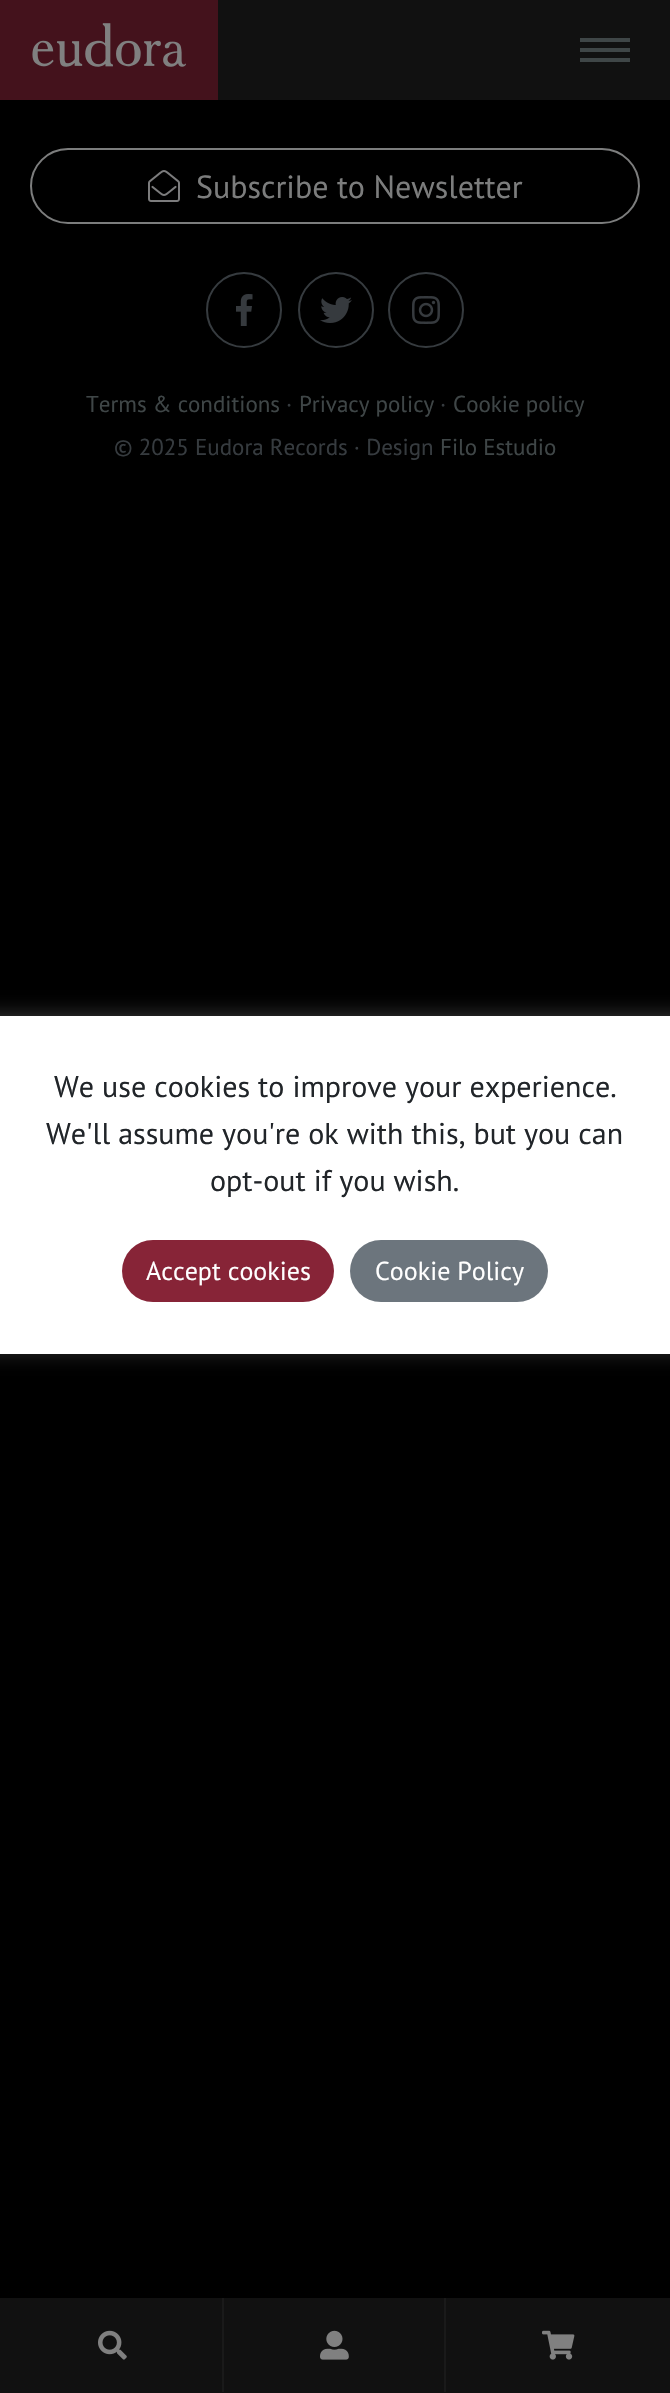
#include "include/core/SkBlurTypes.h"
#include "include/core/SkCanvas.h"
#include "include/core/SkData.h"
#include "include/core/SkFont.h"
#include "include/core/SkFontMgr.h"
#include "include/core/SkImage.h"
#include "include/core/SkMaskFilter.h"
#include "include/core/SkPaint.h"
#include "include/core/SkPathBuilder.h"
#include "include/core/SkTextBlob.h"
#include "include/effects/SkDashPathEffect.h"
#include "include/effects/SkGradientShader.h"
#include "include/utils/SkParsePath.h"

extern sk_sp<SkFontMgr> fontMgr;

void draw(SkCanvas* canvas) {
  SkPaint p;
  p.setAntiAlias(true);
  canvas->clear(SK_ColorBLACK);
  p.setColor(SkColorSetRGB(17, 17, 17));
  canvas->drawRect(SkRect::MakeLTRB(218, 0, 670, 100), p);
  p.setColor(SkColorSetRGB(68, 18, 28));
  canvas->drawRect(SkRect::MakeLTRB(0, 0, 218, 100), p);
  canvas->drawImageRect(SkImages::DeferredFromEncodedData(SkData::MakeFromFileName("images/1.png")), SkRect::MakeLTRB(32, 23, 186, 67), SkSamplingOptions());
  p.setColor(SkColorSetRGB(63, 70, 71));
  canvas->drawRect(SkRect::MakeLTRB(580, 38, 630, 42), p);
  canvas->drawRect(SkRect::MakeLTRB(580, 48, 630, 52), p);
  canvas->drawRect(SkRect::MakeLTRB(580, 58, 630, 62), p);
  p.setStyle(SkPaint::kStroke_Style);
  p.setStrokeWidth(2);
  p.setColor(SkColorSetRGB(124, 125, 125));
  canvas->drawRoundRect(SkRect::MakeLTRB(31, 149, 639, 223), 37, 37, p);
  canvas->drawImageRect(SkImages::DeferredFromEncodedData(SkData::MakeFromFileName("images/2.png")), SkRect::MakeLTRB(148, 170, 180, 202), SkSamplingOptions());
  p.setColor(SkColorSetRGB(54, 59, 63));
  canvas->drawCircle(244, 310, 37, p);
  canvas->drawImageRect(SkImages::DeferredFromEncodedData(SkData::MakeFromFileName("images/3.png")), SkRect::MakeLTRB(236, 294, 253, 326), SkSamplingOptions());
  canvas->drawCircle(336, 310, 37, p);
  canvas->drawImageRect(SkImages::DeferredFromEncodedData(SkData::MakeFromFileName("images/4.png")), SkRect::MakeLTRB(320, 297, 352, 323), SkSamplingOptions());
  canvas->drawCircle(426, 310, 37, p);
  canvas->drawImageRect(SkImages::DeferredFromEncodedData(SkData::MakeFromFileName("images/5.png")), SkRect::MakeLTRB(412, 296, 440, 324), SkSamplingOptions());
  p.setStyle(SkPaint::kFill_Style);
  p.setColor(SkColorSetRGB(17, 17, 17));
  canvas->drawRect(SkRect::MakeLTRB(0, 2298, 222, 2392), p);
  p.setColor(SkColorSetRGB(26, 26, 26));
  canvas->drawRect(SkRect::MakeLTRB(222, 2298, 224, 2393), p);
  p.setColor(SkColorSetRGB(17, 17, 17));
  canvas->drawRect(SkRect::MakeLTRB(0, 2392, 224, 2393), p);
  canvas->drawImageRect(SkImages::DeferredFromEncodedData(SkData::MakeFromFileName("images/6.png")), SkRect::MakeLTRB(98, 2330, 127, 2360), SkSamplingOptions());
  canvas->drawRect(SkRect::MakeLTRB(224, 2298, 444, 2392), p);
  p.setColor(SkColorSetRGB(26, 26, 26));
  canvas->drawRect(SkRect::MakeLTRB(444, 2298, 446, 2393), p);
  p.setColor(SkColorSetRGB(17, 17, 17));
  canvas->drawRect(SkRect::MakeLTRB(224, 2392, 446, 2393), p);
  canvas->drawImageRect(SkImages::DeferredFromEncodedData(SkData::MakeFromFileName("images/7.png")), SkRect::MakeLTRB(320, 2330, 349, 2360), SkSamplingOptions());
  canvas->drawRect(SkRect::MakeLTRB(446, 2298, 670, 2393), p);
  canvas->drawImageRect(SkImages::DeferredFromEncodedData(SkData::MakeFromFileName("images/8.png")), SkRect::MakeLTRB(542, 2330, 575, 2360), SkSamplingOptions());
  p.setColor(SkColorSetARGB(77, 172, 171, 171));
  p.setMaskFilter(SkMaskFilter::MakeBlur(kNormal_SkBlurStyle, 10));
  canvas->drawRoundRect(SkRect::MakeLTRB(-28, 1014, 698, 1352), 6, 6, p);
  p.setMaskFilter(nullptr);
  p.setColor(SK_ColorWHITE);
  canvas->drawRect(SkRect::MakeLTRB(0, 1016, 670, 1354), p);
  p.setColor(SkColorSetRGB(135, 36, 55));
  canvas->drawRoundRect(SkRect::MakeLTRB(122, 1240, 334, 1302), 31, 31, p);
  p.setColor(SkColorSetRGB(108, 117, 125));
  canvas->drawRoundRect(SkRect::MakeLTRB(350, 1240, 548, 1302), 31, 31, p);
  SkFont font1(fontMgr->matchFamilyStyle("PT Sans", SkFontStyle::Normal()), 32);
  font1.setSubpixel(true);
  p.setColor(SkColorSetRGB(124, 125, 125));
  canvas->drawString("Subscribe to Newsletter", 196, 198, font1, p);
  SkFont font2(fontMgr->matchFamilyStyle("PT Sans", SkFontStyle::Normal()), 23);
  font2.setSubpixel(true);
  p.setColor(SkColorSetRGB(63, 70, 71));
  canvas->drawString("Terms & conditions", 86, 412, font2, p);
  p.setColor(SkColorSetRGB(54, 59, 63));
  canvas->drawString("·", 286, 412, font2, p);
  p.setColor(SkColorSetRGB(63, 70, 71));
  canvas->drawString("Privacy policy", 299, 412, font2, p);
  p.setColor(SkColorSetRGB(54, 59, 63));
  canvas->drawString("·", 440, 412, font2, p);
  p.setColor(SkColorSetRGB(63, 70, 71));
  canvas->drawString("Cookie policy", 453, 412, font2, p);
  p.setColor(SkColorSetRGB(54, 59, 63));
  canvas->drawString("© 2025 Eudora Records · Design", 114, 455, font2, p);
  p.setColor(SkColorSetRGB(63, 70, 71));
  canvas->drawString("Filo Estudio", 440, 455, font2, p);
  SkFont font3(fontMgr->matchFamilyStyle("PT Sans", SkFontStyle::Normal()), 30);
  font3.setSubpixel(true);
  p.setColor(SkColorSetRGB(33, 37, 41));
  canvas->drawString("We use cookies to improve your experience.", 54, 1097, font3, p);
  canvas->drawString("We'll assume you're ok with this, but you can", 46, 1144, font3, p);
  canvas->drawString("opt-out if you wish.", 210, 1191, font3, p);
  SkFont font4(fontMgr->matchFamilyStyle("PT Sans", SkFontStyle::Normal()), 26);
  font4.setSubpixel(true);
  p.setColor(SK_ColorWHITE);
  canvas->drawString("Accept cookies", 146, 1280, font4, p);
  canvas->drawString("Cookie Policy", 375, 1280, font4, p);
}
